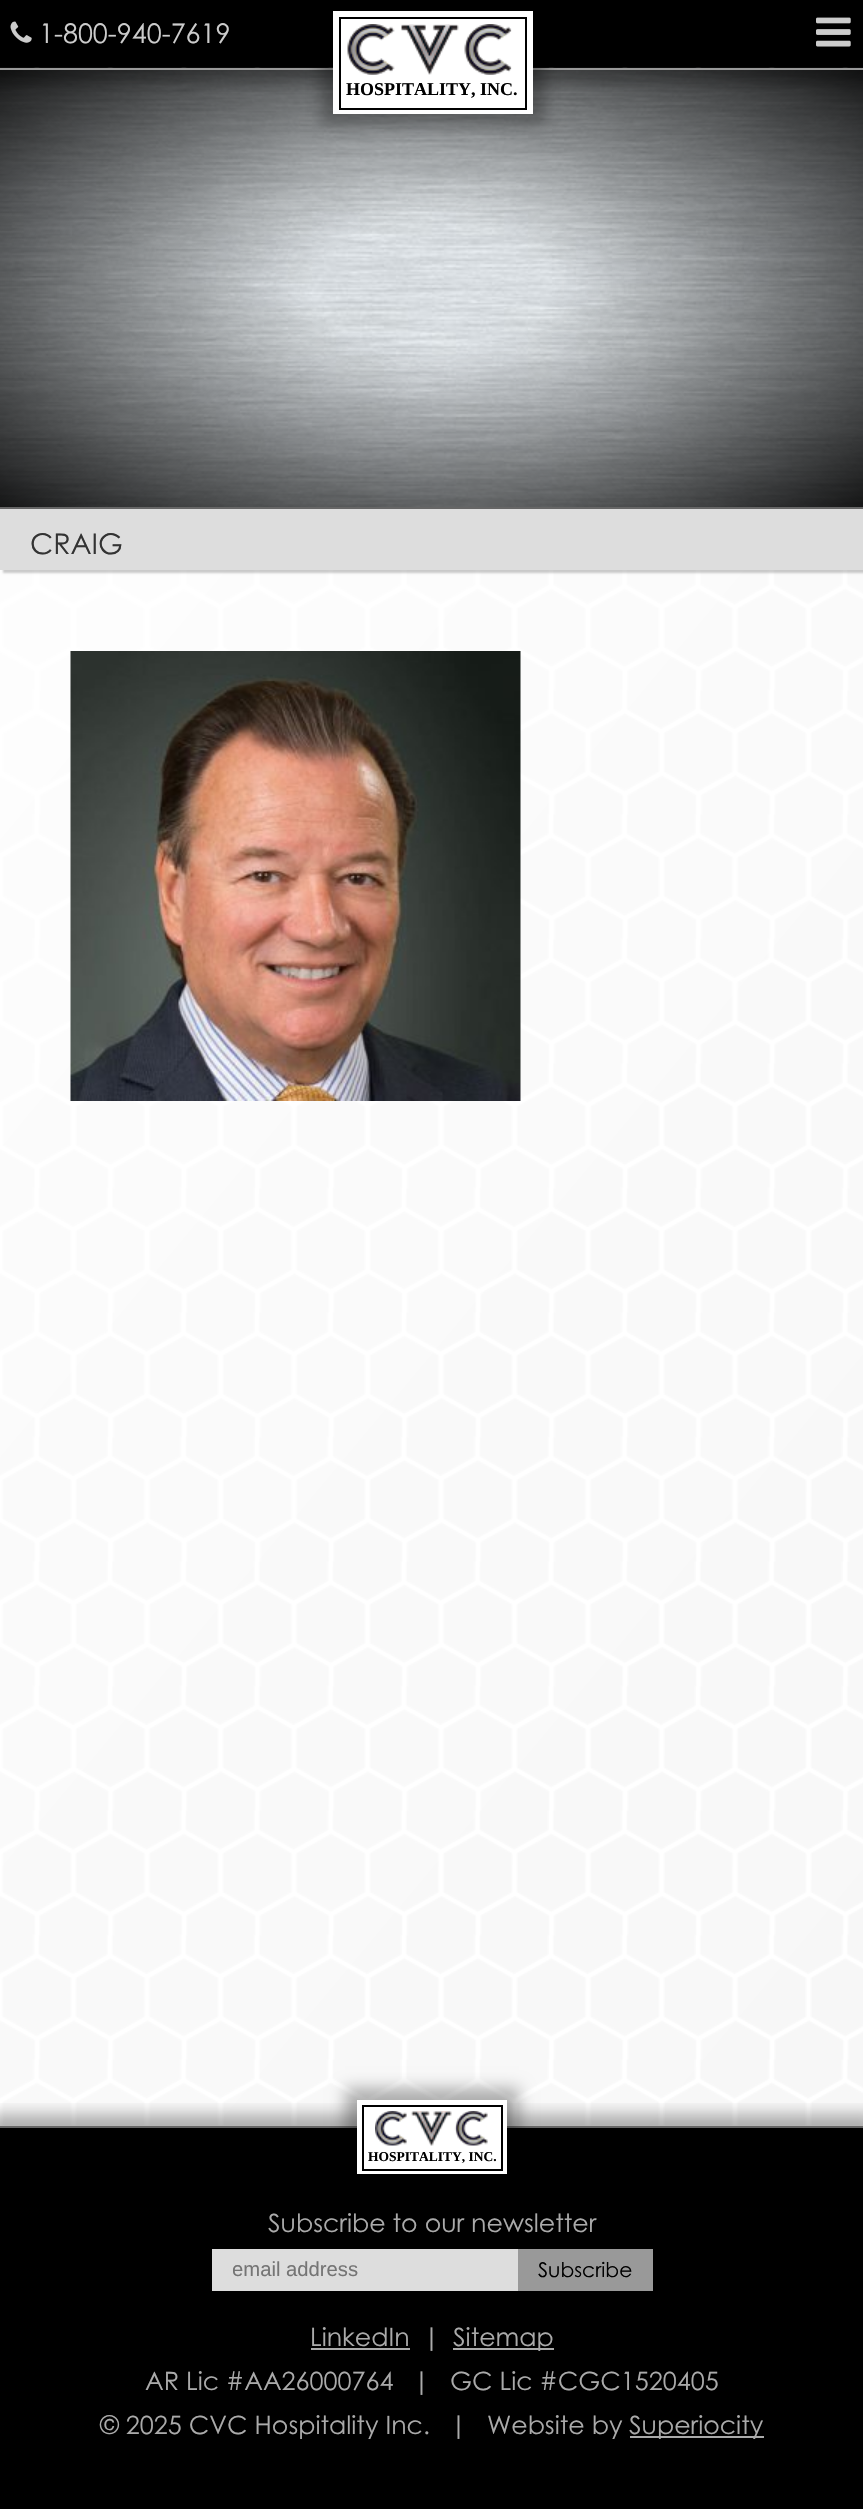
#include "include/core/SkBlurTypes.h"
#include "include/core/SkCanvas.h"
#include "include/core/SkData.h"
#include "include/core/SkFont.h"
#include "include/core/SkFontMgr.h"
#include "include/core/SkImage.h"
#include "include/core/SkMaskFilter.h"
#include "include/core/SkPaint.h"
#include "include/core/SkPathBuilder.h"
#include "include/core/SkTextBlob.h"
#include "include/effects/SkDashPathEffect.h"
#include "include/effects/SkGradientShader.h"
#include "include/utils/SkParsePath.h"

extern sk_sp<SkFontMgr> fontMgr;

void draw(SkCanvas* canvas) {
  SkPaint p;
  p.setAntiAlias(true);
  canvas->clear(SK_ColorBLACK);
  p.setColor(SK_ColorWHITE);
  canvas->drawRect(SkRect::MakeLTRB(0, 2125, 863, 2126), p);
  canvas->drawImageRect(SkImages::DeferredFromEncodedData(SkData::MakeFromFileName("images/4.png")), SkRect::MakeLTRB(0, 67, 863, 2126), SkSamplingOptions());
  canvas->drawImageRect(SkImages::DeferredFromEncodedData(SkData::MakeFromFileName("images/5.png")), SkRect::MakeLTRB(0, 67, 863, 507), SkSamplingOptions());
  canvas->save();
  canvas->clipRect(SkRect::MakeLTRB(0, 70, 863, 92));
  p.setColor(SkColorSetARGB(77, 0, 0, 0));
  p.setMaskFilter(SkMaskFilter::MakeBlur(kNormal_SkBlurStyle, 7.5f));
  canvas->drawRect(SkRect::MakeLTRB(-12, -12, 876, 81), p);
  p.setMaskFilter(nullptr);
  canvas->restore();
  p.setColor(SkColorSetARGB(204, 0, 0, 0));
  canvas->drawRect(SkRect::MakeLTRB(0, 67, 863, 68), p);
  p.setColor(SkColorSetRGB(153, 153, 153));
  canvas->drawRect(SkRect::MakeLTRB(0, 68, 863, 70), p);
  canvas->drawImageRect(SkImages::DeferredFromEncodedData(SkData::MakeFromFileName("images/1.png")), SkRect::MakeLTRB(10, 21, 32, 43), SkSamplingOptions());
  canvas->drawImageRect(SkImages::DeferredFromEncodedData(SkData::MakeFromFileName("images/2.png")), SkRect::MakeLTRB(816, 17, 851, 47), SkSamplingOptions());
  p.setColor(SkColorSetARGB(77, 0, 0, 0));
  p.setMaskFilter(SkMaskFilter::MakeBlur(kNormal_SkBlurStyle, 7.5f));
  canvas->drawRect(SkRect::MakeLTRB(321, -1, 545, 126), p);
  p.setMaskFilter(nullptr);
  p.setColor(SK_ColorWHITE);
  canvas->drawRect(SkRect::MakeLTRB(333, 11, 533, 114), p);
  p.setStyle(SkPaint::kStroke_Style);
  p.setStrokeWidth(2);
  p.setColor(SK_ColorBLACK);
  canvas->drawRect(SkRect::MakeLTRB(340, 18, 526, 109), p);
  canvas->drawImageRect(SkImages::DeferredFromEncodedData(SkData::MakeFromFileName("images/3.png")), SkRect::MakeLTRB(347, 24, 512, 75), SkSamplingOptions());
  p.setStyle(SkPaint::kFill_Style);
  {
    const SkColor colors[] = {SK_ColorWHITE, SkColorSetARGB(250, 255, 255, 255), SkColorSetARGB(247, 255, 255, 255)};
    const float stops[] = {0, 0.5f, 1};
    const SkPoint ends[] = {{-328, 459}, {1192, 1734}};
    p.setShader(SkGradientShader::MakeLinear(ends, colors, stops, 3, SkTileMode::kClamp));
    p.setAlpha(255);
  }
  canvas->drawRect(SkRect::MakeLTRB(0, 570, 863, 2126), p);
  p.setShader(nullptr);
  p.setColor(SkColorSetRGB(102, 102, 102));
  canvas->drawRect(SkRect::MakeLTRB(0, 507, 863, 509), p);
  p.setColor(SkColorSetARGB(51, 0, 0, 0));
  p.setMaskFilter(SkMaskFilter::MakeBlur(kNormal_SkBlurStyle, 1));
  canvas->drawRect(SkRect::MakeLTRB(3, 512, 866, 573), p);
  p.setMaskFilter(nullptr);
  p.setColor(SkColorSetRGB(221, 221, 221));
  canvas->drawRect(SkRect::MakeLTRB(0, 509, 863, 570), p);
  canvas->drawImageRect(SkImages::DeferredFromEncodedData(SkData::MakeFromFileName("images/6.png")), SkRect::MakeLTRB(70, 651, 521, 1101), SkSamplingOptions());
  canvas->save();
  canvas->clipRect(SkRect::MakeLTRB(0, 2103, 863, 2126));
  p.setColor(SkColorSetARGB(77, 0, 0, 0));
  p.setMaskFilter(SkMaskFilter::MakeBlur(kNormal_SkBlurStyle, 7.5f));
  canvas->drawRect(SkRect::MakeLTRB(-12, 2114, 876, 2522), p);
  p.setMaskFilter(nullptr);
  canvas->restore();
  p.setColor(SkColorSetRGB(102, 102, 102));
  canvas->drawRect(SkRect::MakeLTRB(0, 2126, 863, 2128), p);
  p.setColor(SkColorSetARGB(77, 0, 0, 0));
  p.setMaskFilter(SkMaskFilter::MakeBlur(kNormal_SkBlurStyle, 7.5f));
  canvas->drawRect(SkRect::MakeLTRB(345, 2088, 519, 2186), p);
  p.setMaskFilter(nullptr);
  p.setColor(SK_ColorWHITE);
  canvas->drawRect(SkRect::MakeLTRB(357, 2100, 507, 2174), p);
  p.setStyle(SkPaint::kStroke_Style);
  p.setColor(SK_ColorBLACK);
  canvas->drawRect(SkRect::MakeLTRB(363, 2106, 502, 2170), p);
  canvas->drawImageRect(SkImages::DeferredFromEncodedData(SkData::MakeFromFileName("images/7.png")), SkRect::MakeLTRB(375, 2110, 488, 2146), SkSamplingOptions());
  p.setStyle(SkPaint::kFill_Style);
  p.setColor(SkColorSetRGB(221, 221, 221));
  canvas->drawRect(SkRect::MakeLTRB(212, 2249, 518, 2291), p);
  p.setColor(SkColorSetRGB(153, 153, 153));
  canvas->drawRect(SkRect::MakeLTRB(518, 2249, 653, 2291), p);
  p.setColor(SkColorSetRGB(170, 170, 170));
  canvas->drawRect(SkRect::MakeLTRB(311, 2348, 410, 2350), p);
  canvas->drawRect(SkRect::MakeLTRB(453, 2348, 554, 2350), p);
  canvas->drawRect(SkRect::MakeLTRB(630, 2436, 764, 2438), p);
  SkFont font1(fontMgr->matchFamilyStyle("Century Gothic", SkFontStyle::Normal()), 27);
  font1.setSubpixel(true);
  p.setColor(SkColorSetRGB(204, 204, 204));
  canvas->drawString("1-800-940-7619", 39, 43, font1, p);
  SkFont font2(fontMgr->matchFamilyStyle("Liberation Serif", SkFontStyle::Bold()), 18);
  font2.setSubpixel(true);
  p.setColor(SK_ColorBLACK);
  canvas->drawString("HOSPITALITY, INC.", 346, 95, font2, p);
  SkFont font3(fontMgr->matchFamilyStyle("Century Gothic", SkFontStyle::Normal()), 28.5f);
  font3.setSubpixel(true);
  p.setColor(SkColorSetRGB(51, 51, 51));
  canvas->drawString("CRAIG", 30, 554, font3, p);
  SkFont font4(fontMgr->matchFamilyStyle("Liberation Serif", SkFontStyle::Bold()), 13.5f);
  font4.setSubpixel(true);
  p.setColor(SK_ColorBLACK);
  canvas->drawString("HOSPITALITY, INC.", 368, 2161, font4, p);
  SkFont font5(fontMgr->matchFamilyStyle("Century Gothic", SkFontStyle::Normal()), 25.25f);
  font5.setSubpixel(true);
  p.setColor(SkColorSetRGB(170, 170, 170));
  canvas->drawString("Subscribe to our newsletter", 268, 2232, font5, p);
  canvas->save();
  canvas->clipRect(SkRect::MakeLTRB(233, 2258, 498, 2280));
  SkFont font6(fontMgr->matchFamilyStyle("Liberation Sans", SkFontStyle::Normal()), 20.25f);
  font6.setSubpixel(true);
  p.setColor(SkColorSetRGB(117, 117, 117));
  canvas->drawString("email address", 232, 2276, font6, p);
  canvas->restore();
  SkFont font7(fontMgr->matchFamilyStyle("Century Gothic", SkFontStyle::Normal()), 20.25f);
  font7.setSubpixel(true);
  p.setColor(SK_ColorBLACK);
  canvas->drawString("Subscribe", 538, 2277, font7, p);
  p.setColor(SkColorSetRGB(170, 170, 170));
  canvas->drawString("LinkedIn", 310, 2346, font5, p);
  canvas->drawString("|", 423, 2346, font5, p);
  canvas->drawString("Sitemap", 453, 2346, font5, p);
  canvas->drawString("AR Lic #AA26000764", 145, 2390, font5, p);
  canvas->drawString("|", 413, 2390, font5, p);
  canvas->drawString("GC Lic #CGC1520405", 450, 2390, font5, p);
  canvas->drawString("© 2025 CVC Hospitality Inc.", 100, 2434, font5, p);
  canvas->drawString("|", 450, 2434, font5, p);
  canvas->drawString("Website by", 487, 2434, font5, p);
  canvas->drawString("Superiocity", 629, 2434, font5, p);
}
